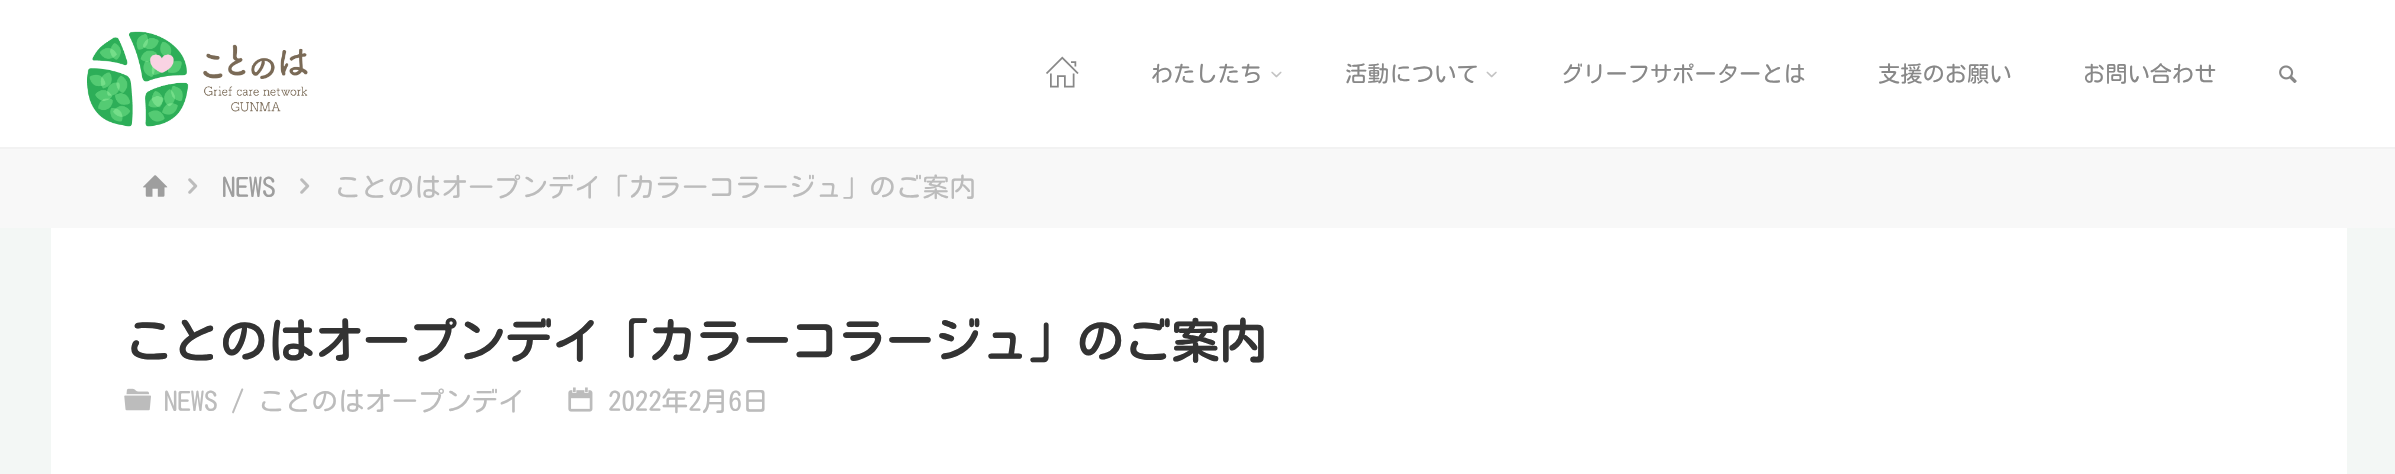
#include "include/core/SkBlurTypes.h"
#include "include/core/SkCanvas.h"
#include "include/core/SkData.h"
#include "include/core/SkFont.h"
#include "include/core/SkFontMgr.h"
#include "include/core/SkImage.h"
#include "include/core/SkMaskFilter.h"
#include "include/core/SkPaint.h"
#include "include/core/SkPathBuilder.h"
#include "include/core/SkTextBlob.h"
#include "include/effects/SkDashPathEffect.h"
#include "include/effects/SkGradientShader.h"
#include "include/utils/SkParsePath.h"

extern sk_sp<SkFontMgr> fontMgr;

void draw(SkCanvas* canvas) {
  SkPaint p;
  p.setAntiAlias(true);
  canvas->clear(SkColorSetRGB(243, 247, 245));
  p.setColor(SK_ColorWHITE);
  canvas->drawRect(SkRect::MakeLTRB(0, 0, 2395, 147), p);
  p.setColor(SkColorSetRGB(242, 242, 242));
  canvas->drawRect(SkRect::MakeLTRB(0, 147, 2395, 149), p);
  canvas->drawImageRect(SkImages::DeferredFromEncodedData(SkData::MakeFromFileName("images/1.png")), SkRect::MakeLTRB(87, 31, 308, 127), SkSamplingOptions());
  canvas->drawImageRect(SkImages::DeferredFromEncodedData(SkData::MakeFromFileName("images/2.png")), SkRect::MakeLTRB(1046, 56, 1079, 88), SkSamplingOptions());
  canvas->drawImageRect(SkImages::DeferredFromEncodedData(SkData::MakeFromFileName("images/3.png")), SkRect::MakeLTRB(1271, 71, 1282, 78), SkSamplingOptions());
  canvas->drawImageRect(SkImages::DeferredFromEncodedData(SkData::MakeFromFileName("images/4.png")), SkRect::MakeLTRB(1486, 71, 1497, 78), SkSamplingOptions());
  canvas->drawImageRect(SkImages::DeferredFromEncodedData(SkData::MakeFromFileName("images/5.png")), SkRect::MakeLTRB(2279, 65, 2297, 83), SkSamplingOptions());
  p.setColor(SkColorSetRGB(248, 248, 248));
  canvas->drawRect(SkRect::MakeLTRB(0, 149, 2395, 228), p);
  canvas->drawImageRect(SkImages::DeferredFromEncodedData(SkData::MakeFromFileName("images/6.png")), SkRect::MakeLTRB(143, 175, 168, 197), SkSamplingOptions());
  canvas->drawImageRect(SkImages::DeferredFromEncodedData(SkData::MakeFromFileName("images/7.png")), SkRect::MakeLTRB(188, 178, 198, 194), SkSamplingOptions());
  canvas->drawImageRect(SkImages::DeferredFromEncodedData(SkData::MakeFromFileName("images/7.png")), SkRect::MakeLTRB(300, 178, 310, 194), SkSamplingOptions());
  p.setColor(SK_ColorWHITE);
  canvas->drawRect(SkRect::MakeLTRB(51, 228, 2347, 474), p);
  canvas->drawImageRect(SkImages::DeferredFromEncodedData(SkData::MakeFromFileName("images/8.png")), SkRect::MakeLTRB(124, 388, 151, 411), SkSamplingOptions());
  canvas->drawImageRect(SkImages::DeferredFromEncodedData(SkData::MakeFromFileName("images/9.png")), SkRect::MakeLTRB(568, 387, 593, 412), SkSamplingOptions());
  SkFont font1(fontMgr->matchFamilyStyle("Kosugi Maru", SkFontStyle::Normal()), 22.25f);
  font1.setSubpixel(true);
  p.setColor(SkColorSetRGB(136, 136, 136));
  canvas->drawString("わたしたち", 1151, 82, font1, p);
  canvas->drawString("活動について", 1345, 82, font1, p);
  canvas->drawString("グリーフサポーターとは", 1561, 82, font1, p);
  canvas->drawString("支援のお願い", 1878, 82, font1, p);
  canvas->drawString("お問い合わせ", 2083, 82, font1, p);
  SkFont font2(fontMgr->matchFamilyStyle("Kosugi Maru", SkFontStyle::Normal()), 26.75f);
  font2.setSubpixel(true);
  p.setColor(SkColorSetRGB(158, 158, 158));
  canvas->drawString("NEWS", 222, 197, font2, p);
  p.setColor(SkColorSetRGB(188, 188, 188));
  canvas->drawString("ことのはオープンデイ「カラーコラージュ」のご案内", 334, 197, font2, p);
  SkFont font3(fontMgr->matchFamilyStyle("Kosugi Maru", SkFontStyle::Bold()), 47.6f);
  font3.setSubpixel(true);
  p.setColor(SkColorSetRGB(51, 51, 51));
  canvas->drawString("ことのはオープンデイ「カラーコラージュ」のご案内", 124, 359, font3, p);
  p.setColor(SkColorSetRGB(188, 188, 188));
  canvas->drawString("NEWS / ことのはオープンデイ", 164, 411, font2, p);
  canvas->drawString("2022年2月6日", 608, 411, font2, p);
}
